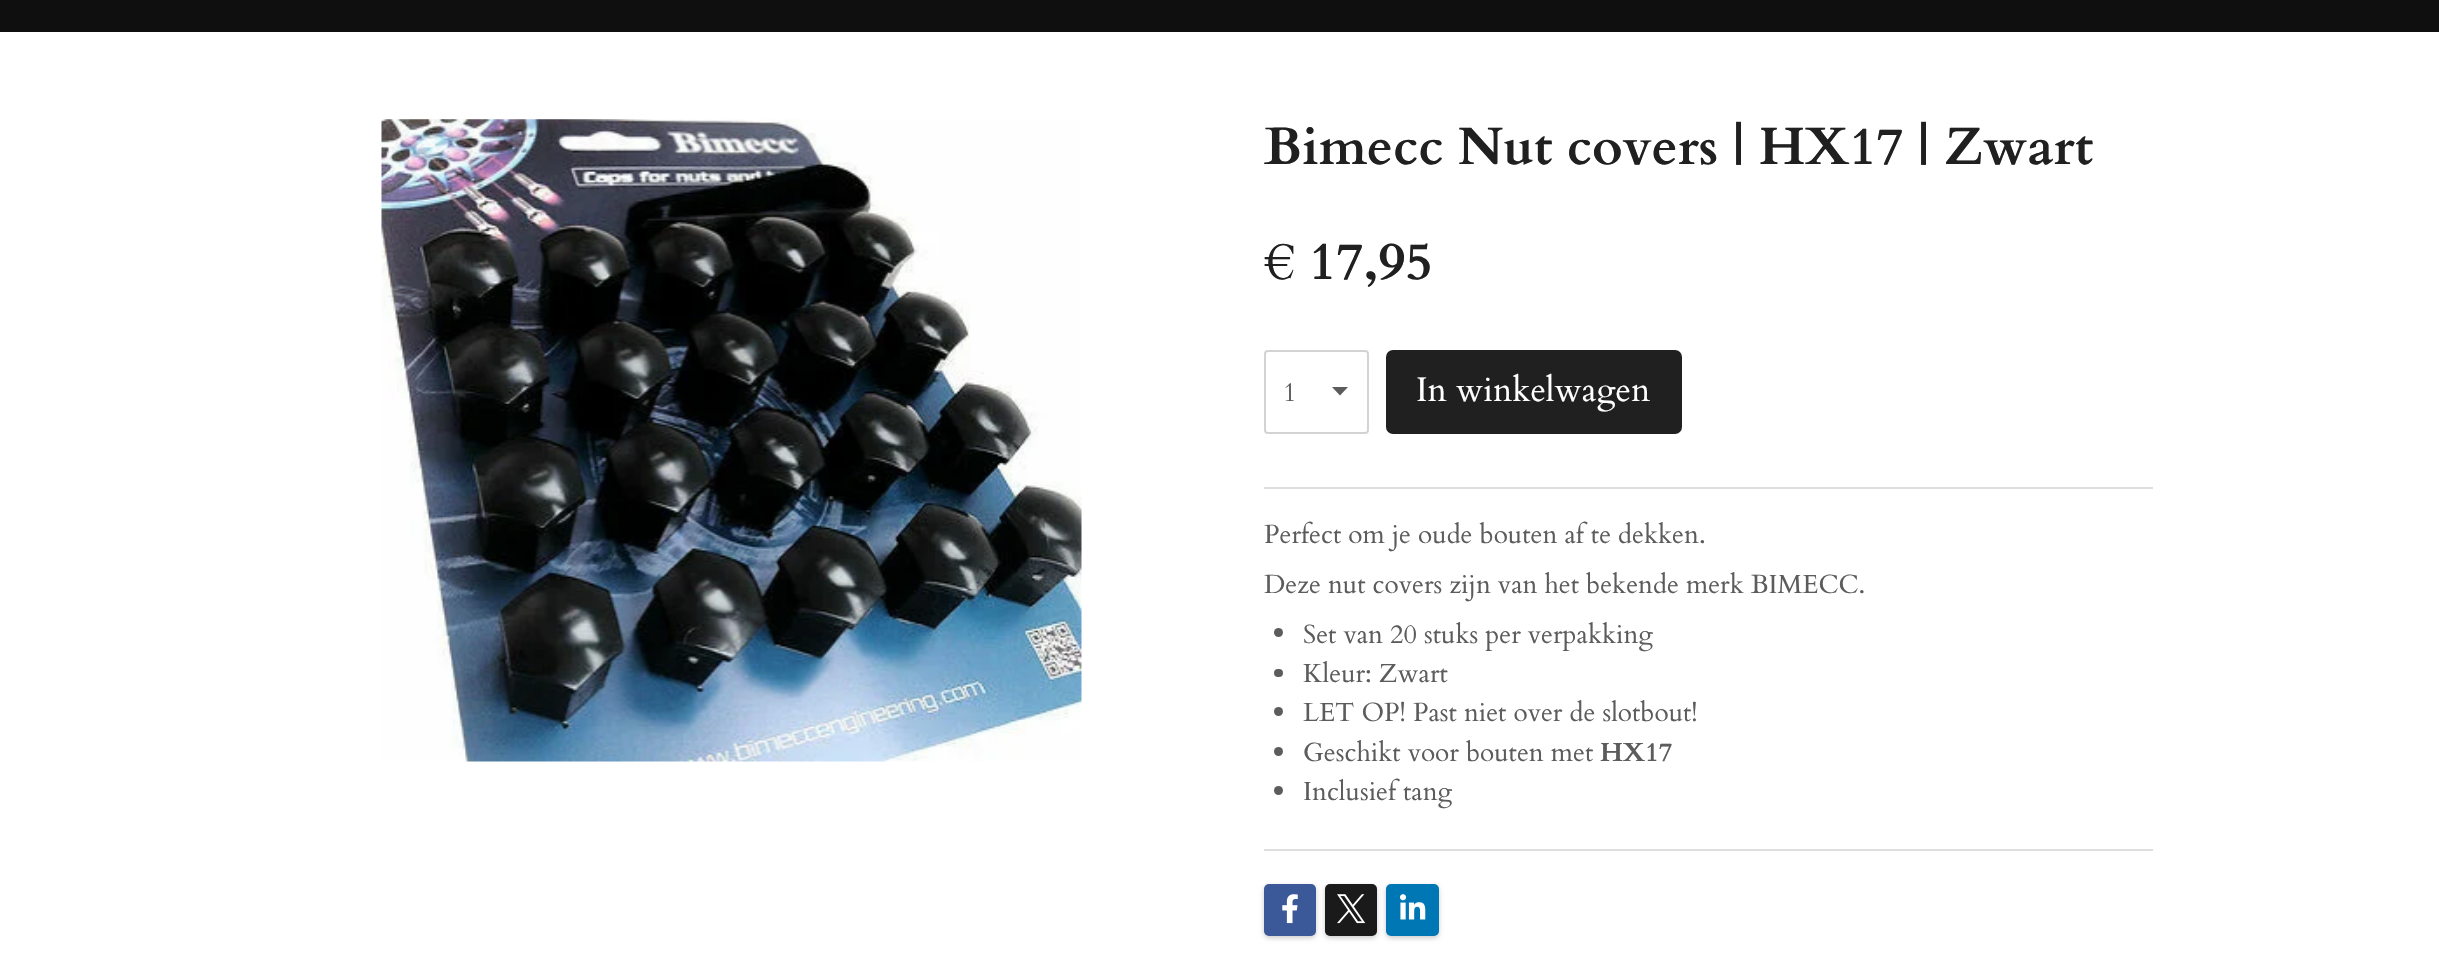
#include "include/core/SkBlurTypes.h"
#include "include/core/SkCanvas.h"
#include "include/core/SkData.h"
#include "include/core/SkFont.h"
#include "include/core/SkFontMgr.h"
#include "include/core/SkImage.h"
#include "include/core/SkMaskFilter.h"
#include "include/core/SkPaint.h"
#include "include/core/SkPathBuilder.h"
#include "include/core/SkTextBlob.h"
#include "include/effects/SkDashPathEffect.h"
#include "include/effects/SkGradientShader.h"
#include "include/utils/SkParsePath.h"

extern sk_sp<SkFontMgr> fontMgr;

void draw(SkCanvas* canvas) {
  SkPaint p;
  p.setAntiAlias(true);
  canvas->clear(SkColorSetRGB(15, 15, 15));
  p.setColor(SK_ColorWHITE);
  canvas->drawRect(SkRect::MakeLTRB(0, 32, 2439, 970), p);
  canvas->drawImageRect(SkImages::DeferredFromEncodedData(SkData::MakeFromFileName("images/1.png")), SkRect::MakeLTRB(381, 119, 1082, 762), SkSamplingOptions());
  p.setColor(SkColorSetRGB(92, 92, 92));
  canvas->drawPath(SkPathBuilder().moveTo(1340, 395.5f).lineTo(1332, 387).lineTo(1348, 387).close().detach(), p);
  p.setStyle(SkPaint::kStroke_Style);
  p.setStrokeWidth(2);
  p.setColor(SkColorSetRGB(211, 211, 211));
  canvas->drawRoundRect(SkRect::MakeLTRB(1265, 351, 1368, 433), 3, 3, p);
  p.setStyle(SkPaint::kFill_Style);
  p.setColor(SkColorSetRGB(32, 32, 32));
  canvas->drawRoundRect(SkRect::MakeLTRB(1386, 350, 1682, 434), 7, 7, p);
  p.setColor(SkColorSetRGB(222, 222, 222));
  canvas->drawRect(SkRect::MakeLTRB(1264, 487, 2153, 489), p);
  p.setColor(SkColorSetRGB(92, 92, 92));
  canvas->drawCircle(1278.5f, 632.5f, 4.5f, p);
  canvas->drawRoundRect(SkRect::MakeLTRB(1274, 669, 1283, 677), 4, 4, p);
  canvas->drawCircle(1278.5f, 711.5f, 4.5f, p);
  canvas->drawCircle(1278.5f, 751.5f, 4.5f, p);
  canvas->drawCircle(1278.5f, 790.5f, 4.5f, p);
  p.setColor(SkColorSetRGB(222, 222, 222));
  canvas->drawRect(SkRect::MakeLTRB(1264, 849, 2153, 851), p);
  p.setColor(SkColorSetARGB(51, 0, 0, 0));
  p.setMaskFilter(SkMaskFilter::MakeBlur(kNormal_SkBlurStyle, 2.5f));
  canvas->drawRoundRect(SkRect::MakeLTRB(1264, 886, 1316, 938), 5, 5, p);
  p.setMaskFilter(nullptr);
  p.setColor(SkColorSetRGB(59, 89, 152));
  canvas->drawRoundRect(SkRect::MakeLTRB(1264, 884, 1316, 936), 5, 5, p);
  canvas->drawImageRect(SkImages::DeferredFromEncodedData(SkData::MakeFromFileName("images/2.png")), SkRect::MakeLTRB(1282, 894, 1298, 924), SkSamplingOptions());
  p.setColor(SkColorSetARGB(51, 0, 0, 0));
  p.setMaskFilter(SkMaskFilter::MakeBlur(kNormal_SkBlurStyle, 2.5f));
  canvas->drawRoundRect(SkRect::MakeLTRB(1325, 886, 1377, 938), 5, 5, p);
  p.setMaskFilter(nullptr);
  p.setColor(SkColorSetRGB(26, 26, 26));
  canvas->drawRoundRect(SkRect::MakeLTRB(1325, 884, 1377, 936), 5, 5, p);
  canvas->drawImageRect(SkImages::DeferredFromEncodedData(SkData::MakeFromFileName("images/3.png")), SkRect::MakeLTRB(1337, 894, 1366, 924), SkSamplingOptions());
  p.setColor(SkColorSetARGB(51, 0, 0, 0));
  p.setMaskFilter(SkMaskFilter::MakeBlur(kNormal_SkBlurStyle, 2.5f));
  canvas->drawRoundRect(SkRect::MakeLTRB(1386, 886, 1439, 938), 5, 5, p);
  p.setMaskFilter(nullptr);
  p.setColor(SkColorSetRGB(0, 119, 181));
  canvas->drawRoundRect(SkRect::MakeLTRB(1386, 884, 1439, 936), 5, 5, p);
  canvas->drawImageRect(SkImages::DeferredFromEncodedData(SkData::MakeFromFileName("images/4.png")), SkRect::MakeLTRB(1400, 894, 1426, 920), SkSamplingOptions());
  SkFont font1(fontMgr->matchFamilyStyle("Cardo", SkFontStyle::Bold()), 52.5f);
  font1.setSubpixel(true);
  p.setColor(SkColorSetRGB(32, 32, 32));
  canvas->drawString("Bimecc Nut covers | HX17 | Zwart", 1264, 164, font1, p);
  canvas->drawString("€ 17,95", 1264, 279, font1, p);
  SkFont font2(fontMgr->matchFamilyStyle("Cardo", SkFontStyle::Normal()), 26.25f);
  font2.setSubpixel(true);
  p.setColor(SkColorSetRGB(92, 92, 92));
  canvas->drawString("1", 1283, 401, font2, p);
  SkFont font3(fontMgr->matchFamilyStyle("Cardo", SkFontStyle::Normal()), 34);
  font3.setSubpixel(true);
  p.setColor(SK_ColorWHITE);
  canvas->drawString("In winkelwagen", 1416, 401, font3, p);
  p.setColor(SkColorSetRGB(92, 92, 92));
  canvas->drawString("Perfect om je oude bouten af te dekken.", 1264, 543, font2, p);
  canvas->drawString("Deze nut covers zijn van het bekende merk BIMECC.", 1264, 593, font2, p);
  canvas->drawString("Set van 20 stuks per verpakking", 1303, 643, font2, p);
  canvas->drawString("Kleur: Zwart", 1303, 682, font2, p);
  canvas->drawString("LET OP! Past niet over de slotbout!", 1303, 721, font2, p);
  canvas->drawString("Geschikt voor bouten met", 1303, 761, font2, p);
  SkFont font4(fontMgr->matchFamilyStyle("Cardo", SkFontStyle::Bold()), 26.25f);
  font4.setSubpixel(true);
  canvas->drawString("HX17", 1600, 761, font4, p);
  canvas->drawString("Inclusief tang", 1303, 800, font2, p);
}
